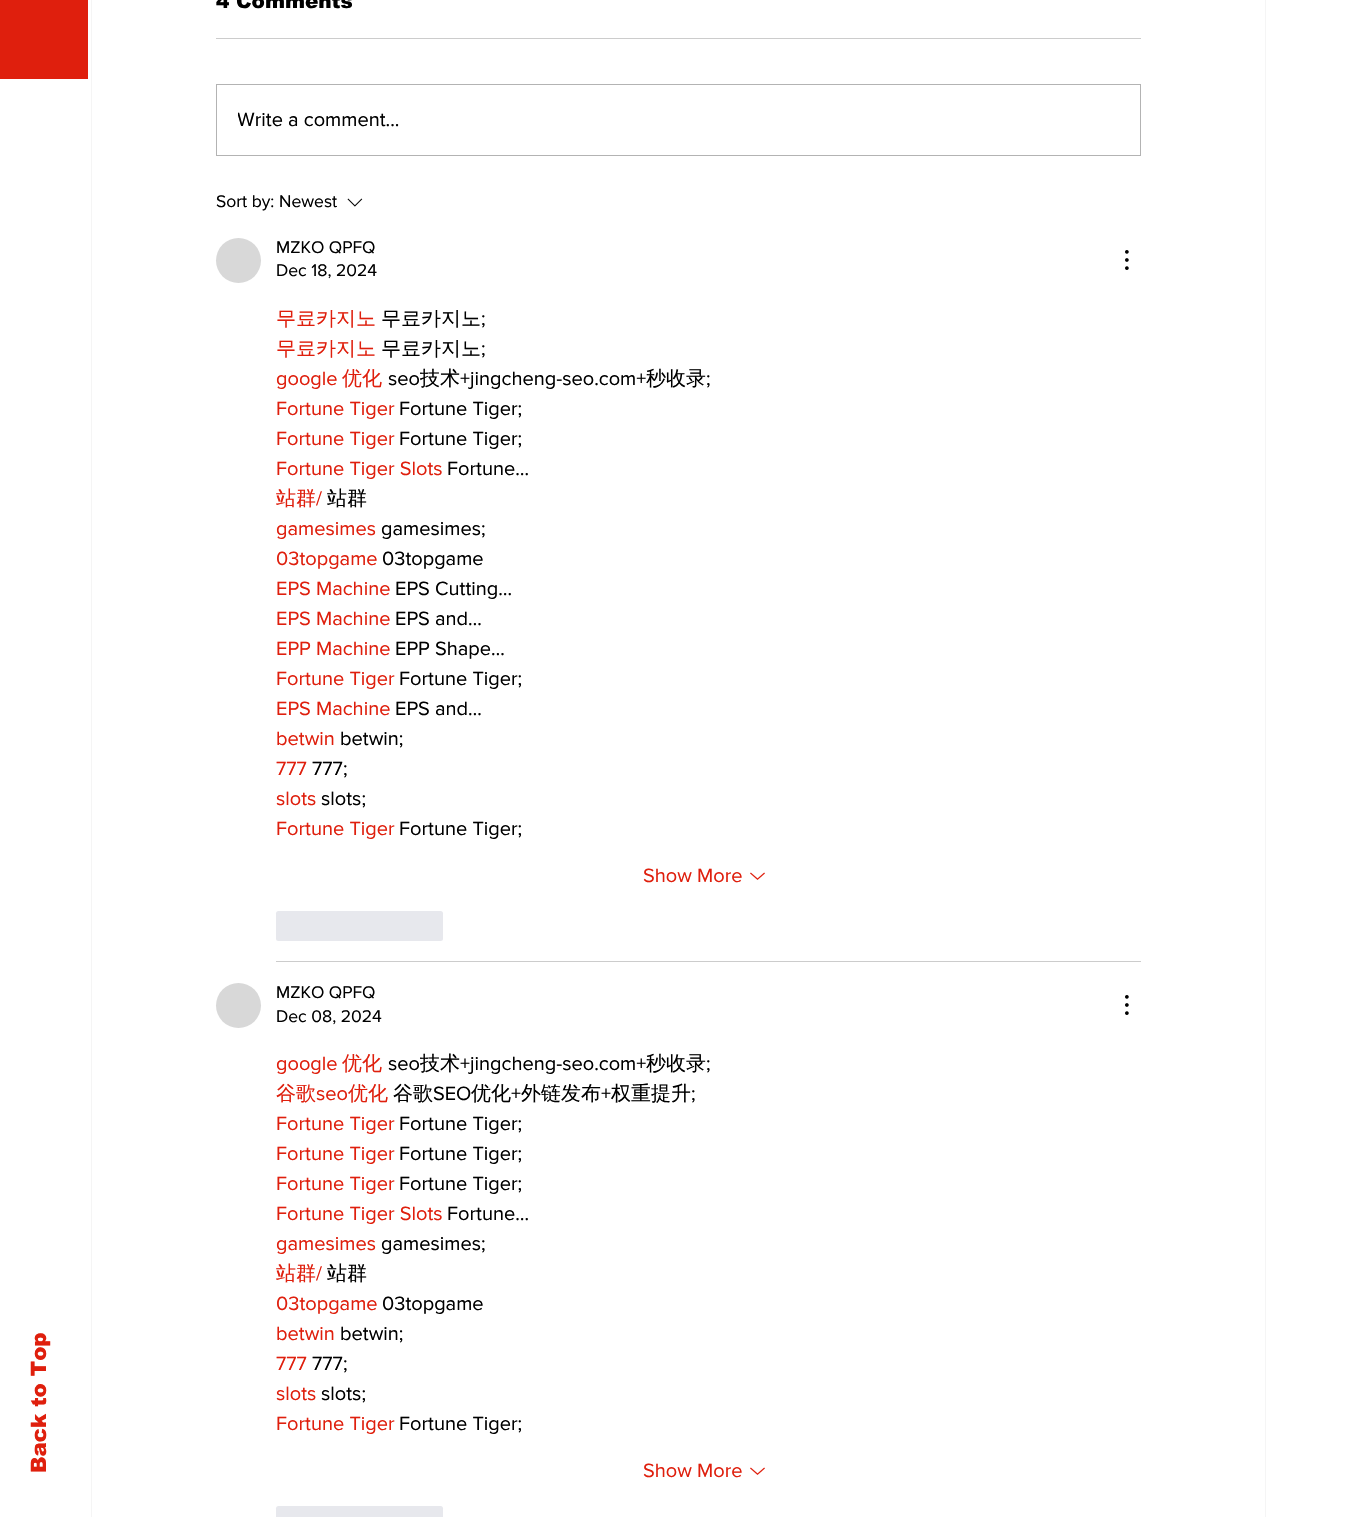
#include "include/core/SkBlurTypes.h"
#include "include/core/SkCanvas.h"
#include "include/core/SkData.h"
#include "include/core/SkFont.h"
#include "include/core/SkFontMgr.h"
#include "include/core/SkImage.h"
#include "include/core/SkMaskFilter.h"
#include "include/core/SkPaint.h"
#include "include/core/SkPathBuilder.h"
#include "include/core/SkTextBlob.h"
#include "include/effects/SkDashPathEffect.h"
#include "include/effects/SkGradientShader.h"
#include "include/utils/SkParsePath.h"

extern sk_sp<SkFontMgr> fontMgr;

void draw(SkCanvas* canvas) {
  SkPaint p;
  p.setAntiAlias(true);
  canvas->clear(SK_ColorWHITE);
  p.setColor(SkColorSetRGB(223, 31, 13));
  canvas->drawRect(SkRect::MakeLTRB(0, 0, 88, 79), p);
  p.setStyle(SkPaint::kStroke_Style);
  p.setStrokeWidth(1);
  p.setColor(SkColorSetRGB(245, 245, 245));
  canvas->drawRect(SkRect::MakeLTRB(91.5f, -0.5f, 1265.5f, 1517.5f), p);
  p.setStyle(SkPaint::kFill_Style);
  p.setColor(SkColorSetRGB(204, 204, 204));
  canvas->drawRect(SkRect::MakeLTRB(216, 38, 1141, 39), p);
  p.setStyle(SkPaint::kStroke_Style);
  p.setColor(SkColorSetRGB(179, 179, 179));
  canvas->drawRect(SkRect::MakeLTRB(216.5f, 84.5f, 1140.5f, 155.5f), p);
  canvas->drawImageRect(SkImages::DeferredFromEncodedData(SkData::MakeFromFileName("images/1.png")), SkRect::MakeLTRB(347, 198, 363, 207), SkSamplingOptions());
  p.setStyle(SkPaint::kFill_Style);
  p.setColor(SkColorSetRGB(216, 216, 216));
  canvas->drawCircle(238.5f, 260.5f, 22.5f, p);
  canvas->drawImageRect(SkImages::DeferredFromEncodedData(SkData::MakeFromFileName("images/2.png")), SkRect::MakeLTRB(1125, 250, 1129, 270), SkSamplingOptions());
  canvas->drawImageRect(SkImages::DeferredFromEncodedData(SkData::MakeFromFileName("images/3.png")), SkRect::MakeLTRB(750, 872, 765, 880), SkSamplingOptions());
  p.setColor(SkColorSetRGB(231, 232, 237));
  canvas->drawRoundRect(SkRect::MakeLTRB(276, 911, 443, 941), 2.5f, 2.5f, p);
  p.setColor(SkColorSetRGB(204, 204, 204));
  canvas->drawRect(SkRect::MakeLTRB(276, 961, 1141, 962), p);
  p.setColor(SkColorSetRGB(216, 216, 216));
  canvas->drawCircle(238.5f, 1005.5f, 22.5f, p);
  canvas->drawImageRect(SkImages::DeferredFromEncodedData(SkData::MakeFromFileName("images/2.png")), SkRect::MakeLTRB(1125, 995, 1129, 1015), SkSamplingOptions());
  canvas->drawImageRect(SkImages::DeferredFromEncodedData(SkData::MakeFromFileName("images/3.png")), SkRect::MakeLTRB(750, 1467, 765, 1475), SkSamplingOptions());
  p.setColor(SkColorSetRGB(231, 232, 237));
  canvas->drawRoundRect(SkRect::MakeLTRB(276, 1506, 443, 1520), 2.5f, 2.5f, p);
  SkFont font1(fontMgr->matchFamilyStyle("arial", SkFontStyle(900, SkFontStyle::kNormal_Width, SkFontStyle::kUpright_Slant)), 20);
  font1.setSubpixel(true);
  p.setColor(SK_ColorBLACK);
  canvas->drawString("4 Comments", 216, 8, font1, p);
  canvas->save();
  canvas->clipRect(SkRect::MakeLTRB(238, 105, 1120, 135));
  SkFont font2(fontMgr->matchFamilyStyle("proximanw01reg", SkFontStyle::Normal()), 20);
  font2.setSubpixel(true);
  canvas->drawString("Write a comment...", 237, 126, font2, p);
  canvas->restore();
  SkFont font3(fontMgr->matchFamilyStyle("proximanw01reg", SkFontStyle::Normal()), 17.5f);
  font3.setSubpixel(true);
  canvas->drawString("Sort by:", 216, 207, font3, p);
  canvas->drawString("Newest", 279, 207, font3, p);
  canvas->drawString("MZKO QPFQ", 276, 253, font3, p);
  canvas->drawString("Dec 18, 2024", 276, 276, font3, p);
  SkFont font4(fontMgr->matchFamilyStyle("WenQuanYi Zen Hei", SkFontStyle(500, SkFontStyle::kNormal_Width, SkFontStyle::kUpright_Slant)), 20);
  font4.setSubpixel(true);
  p.setColor(SkColorSetRGB(223, 31, 13));
  canvas->drawString("무료카지노", 276, 325, font4, p);
  p.setColor(SK_ColorBLACK);
  canvas->drawString("무료카지노", 381, 325, font4, p);
  canvas->drawString(";", 481, 325, font2, p);
  p.setColor(SkColorSetRGB(223, 31, 13));
  canvas->drawString("무료카지노", 276, 355, font4, p);
  p.setColor(SK_ColorBLACK);
  canvas->drawString("무료카지노", 381, 355, font4, p);
  canvas->drawString(";", 481, 355, font2, p);
  p.setColor(SkColorSetRGB(223, 31, 13));
  canvas->drawString("google", 276, 385, font2, p);
  canvas->drawString("优化", 342, 385, font4, p);
  p.setColor(SK_ColorBLACK);
  canvas->drawString("seo", 388, 385, font2, p);
  canvas->drawString("技术", 420, 385, font4, p);
  canvas->drawString("+jingcheng-seo.com+", 460, 385, font2, p);
  canvas->drawString("秒收录", 646, 385, font4, p);
  canvas->drawString(";", 706, 385, font2, p);
  p.setColor(SkColorSetRGB(223, 31, 13));
  canvas->drawString("Fortune Tiger", 276, 415, font2, p);
  p.setColor(SK_ColorBLACK);
  canvas->drawString("Fortune Tiger;", 399, 415, font2, p);
  p.setColor(SkColorSetRGB(223, 31, 13));
  canvas->drawString("Fortune Tiger", 276, 445, font2, p);
  p.setColor(SK_ColorBLACK);
  canvas->drawString("Fortune Tiger;", 399, 445, font2, p);
  p.setColor(SkColorSetRGB(223, 31, 13));
  canvas->drawString("Fortune Tiger Slots", 276, 475, font2, p);
  p.setColor(SK_ColorBLACK);
  canvas->drawString("Fortune…", 447, 475, font2, p);
  p.setColor(SkColorSetRGB(223, 31, 13));
  canvas->drawString("站群", 276, 505, font4, p);
  canvas->drawString("/", 316, 505, font2, p);
  p.setColor(SK_ColorBLACK);
  canvas->drawString("站群", 327, 505, font4, p);
  p.setColor(SkColorSetRGB(223, 31, 13));
  canvas->drawString("gamesimes", 276, 535, font2, p);
  p.setColor(SK_ColorBLACK);
  canvas->drawString("gamesimes;", 381, 535, font2, p);
  p.setColor(SkColorSetRGB(223, 31, 13));
  canvas->drawString("03topgame", 276, 565, font2, p);
  p.setColor(SK_ColorBLACK);
  canvas->drawString("03topgame", 382, 565, font2, p);
  p.setColor(SkColorSetRGB(223, 31, 13));
  canvas->drawString("EPS Machine", 276, 595, font2, p);
  p.setColor(SK_ColorBLACK);
  canvas->drawString("EPS Cutting…", 395, 595, font2, p);
  p.setColor(SkColorSetRGB(223, 31, 13));
  canvas->drawString("EPS Machine", 276, 625, font2, p);
  p.setColor(SK_ColorBLACK);
  canvas->drawString("EPS and…", 395, 625, font2, p);
  p.setColor(SkColorSetRGB(223, 31, 13));
  canvas->drawString("EPP Machine", 276, 655, font2, p);
  p.setColor(SK_ColorBLACK);
  canvas->drawString("EPP Shape…", 395, 655, font2, p);
  p.setColor(SkColorSetRGB(223, 31, 13));
  canvas->drawString("Fortune Tiger", 276, 685, font2, p);
  p.setColor(SK_ColorBLACK);
  canvas->drawString("Fortune Tiger;", 399, 685, font2, p);
  p.setColor(SkColorSetRGB(223, 31, 13));
  canvas->drawString("EPS Machine", 276, 715, font2, p);
  p.setColor(SK_ColorBLACK);
  canvas->drawString("EPS and…", 395, 715, font2, p);
  p.setColor(SkColorSetRGB(223, 31, 13));
  canvas->drawString("betwin", 276, 745, font2, p);
  p.setColor(SK_ColorBLACK);
  canvas->drawString("betwin;", 340, 745, font2, p);
  p.setColor(SkColorSetRGB(223, 31, 13));
  canvas->drawString("777", 276, 775, font2, p);
  p.setColor(SK_ColorBLACK);
  canvas->drawString("777;", 312, 775, font2, p);
  p.setColor(SkColorSetRGB(223, 31, 13));
  canvas->drawString("slots", 276, 805, font2, p);
  p.setColor(SK_ColorBLACK);
  canvas->drawString("slots;", 321, 805, font2, p);
  p.setColor(SkColorSetRGB(223, 31, 13));
  canvas->drawString("Fortune Tiger", 276, 835, font2, p);
  p.setColor(SK_ColorBLACK);
  canvas->drawString("Fortune Tiger;", 399, 835, font2, p);
  p.setColor(SkColorSetRGB(223, 31, 13));
  canvas->drawString("Show More", 643, 882, font2, p);
  p.setColor(SK_ColorBLACK);
  canvas->drawString("MZKO QPFQ", 276, 998, font3, p);
  canvas->drawString("Dec 08, 2024", 276, 1022, font3, p);
  p.setColor(SkColorSetRGB(223, 31, 13));
  canvas->drawString("google", 276, 1070, font2, p);
  canvas->drawString("优化", 342, 1070, font4, p);
  p.setColor(SK_ColorBLACK);
  canvas->drawString("seo", 388, 1070, font2, p);
  canvas->drawString("技术", 420, 1070, font4, p);
  canvas->drawString("+jingcheng-seo.com+", 460, 1070, font2, p);
  canvas->drawString("秒收录", 646, 1070, font4, p);
  canvas->drawString(";", 706, 1070, font2, p);
  p.setColor(SkColorSetRGB(223, 31, 13));
  canvas->drawString("谷歌", 276, 1100, font4, p);
  canvas->drawString("seo", 316, 1100, font2, p);
  canvas->drawString("优化", 348, 1100, font4, p);
  p.setColor(SK_ColorBLACK);
  canvas->drawString("谷歌", 393, 1100, font4, p);
  canvas->drawString("SEO", 433, 1100, font2, p);
  canvas->drawString("优化", 471, 1100, font4, p);
  canvas->drawString("+", 511, 1100, font2, p);
  canvas->drawString("外链发布", 521, 1100, font4, p);
  canvas->drawString("+", 601, 1100, font2, p);
  canvas->drawString("权重提升", 611, 1100, font4, p);
  canvas->drawString(";", 691, 1100, font2, p);
  p.setColor(SkColorSetRGB(223, 31, 13));
  canvas->drawString("Fortune Tiger", 276, 1130, font2, p);
  p.setColor(SK_ColorBLACK);
  canvas->drawString("Fortune Tiger;", 399, 1130, font2, p);
  p.setColor(SkColorSetRGB(223, 31, 13));
  canvas->drawString("Fortune Tiger", 276, 1160, font2, p);
  p.setColor(SK_ColorBLACK);
  canvas->drawString("Fortune Tiger;", 399, 1160, font2, p);
  p.setColor(SkColorSetRGB(223, 31, 13));
  canvas->drawString("Fortune Tiger", 276, 1190, font2, p);
  p.setColor(SK_ColorBLACK);
  canvas->drawString("Fortune Tiger;", 399, 1190, font2, p);
  p.setColor(SkColorSetRGB(223, 31, 13));
  canvas->drawString("Fortune Tiger Slots", 276, 1220, font2, p);
  p.setColor(SK_ColorBLACK);
  canvas->drawString("Fortune…", 447, 1220, font2, p);
  p.setColor(SkColorSetRGB(223, 31, 13));
  canvas->drawString("gamesimes", 276, 1250, font2, p);
  p.setColor(SK_ColorBLACK);
  canvas->drawString("gamesimes;", 381, 1250, font2, p);
  p.setColor(SkColorSetRGB(223, 31, 13));
  canvas->drawString("站群", 276, 1280, font4, p);
  canvas->drawString("/", 316, 1280, font2, p);
  p.setColor(SK_ColorBLACK);
  canvas->drawString("站群", 327, 1280, font4, p);
  p.setColor(SkColorSetRGB(223, 31, 13));
  canvas->drawString("03topgame", 276, 1310, font2, p);
  p.setColor(SK_ColorBLACK);
  canvas->drawString("03topgame", 382, 1310, font2, p);
  p.setColor(SkColorSetRGB(223, 31, 13));
  canvas->drawString("betwin", 276, 1340, font2, p);
  p.setColor(SK_ColorBLACK);
  canvas->drawString("betwin;", 340, 1340, font2, p);
  p.setColor(SkColorSetRGB(223, 31, 13));
  canvas->drawString("777", 276, 1370, font2, p);
  p.setColor(SK_ColorBLACK);
  canvas->drawString("777;", 312, 1370, font2, p);
  p.setColor(SkColorSetRGB(223, 31, 13));
  canvas->drawString("slots", 276, 1400, font2, p);
  p.setColor(SK_ColorBLACK);
  canvas->drawString("slots;", 321, 1400, font2, p);
  p.setColor(SkColorSetRGB(223, 31, 13));
  canvas->drawString("Fortune Tiger", 276, 1430, font2, p);
  p.setColor(SK_ColorBLACK);
  canvas->drawString("Fortune Tiger;", 399, 1430, font2, p);
  p.setColor(SkColorSetRGB(223, 31, 13));
  canvas->drawString("Show More", 643, 1477, font2, p);
  SkFont font5(fontMgr->matchFamilyStyle("arial", SkFontStyle(900, SkFontStyle::kNormal_Width, SkFontStyle::kUpright_Slant)), 21.25f);
  font5.setSubpixel(true);
  canvas->save();
  canvas->rotate(-90, 46, 1473);
  canvas->drawString("Back to Top", 46, 1473, font5, p);
  canvas->restore();
}
